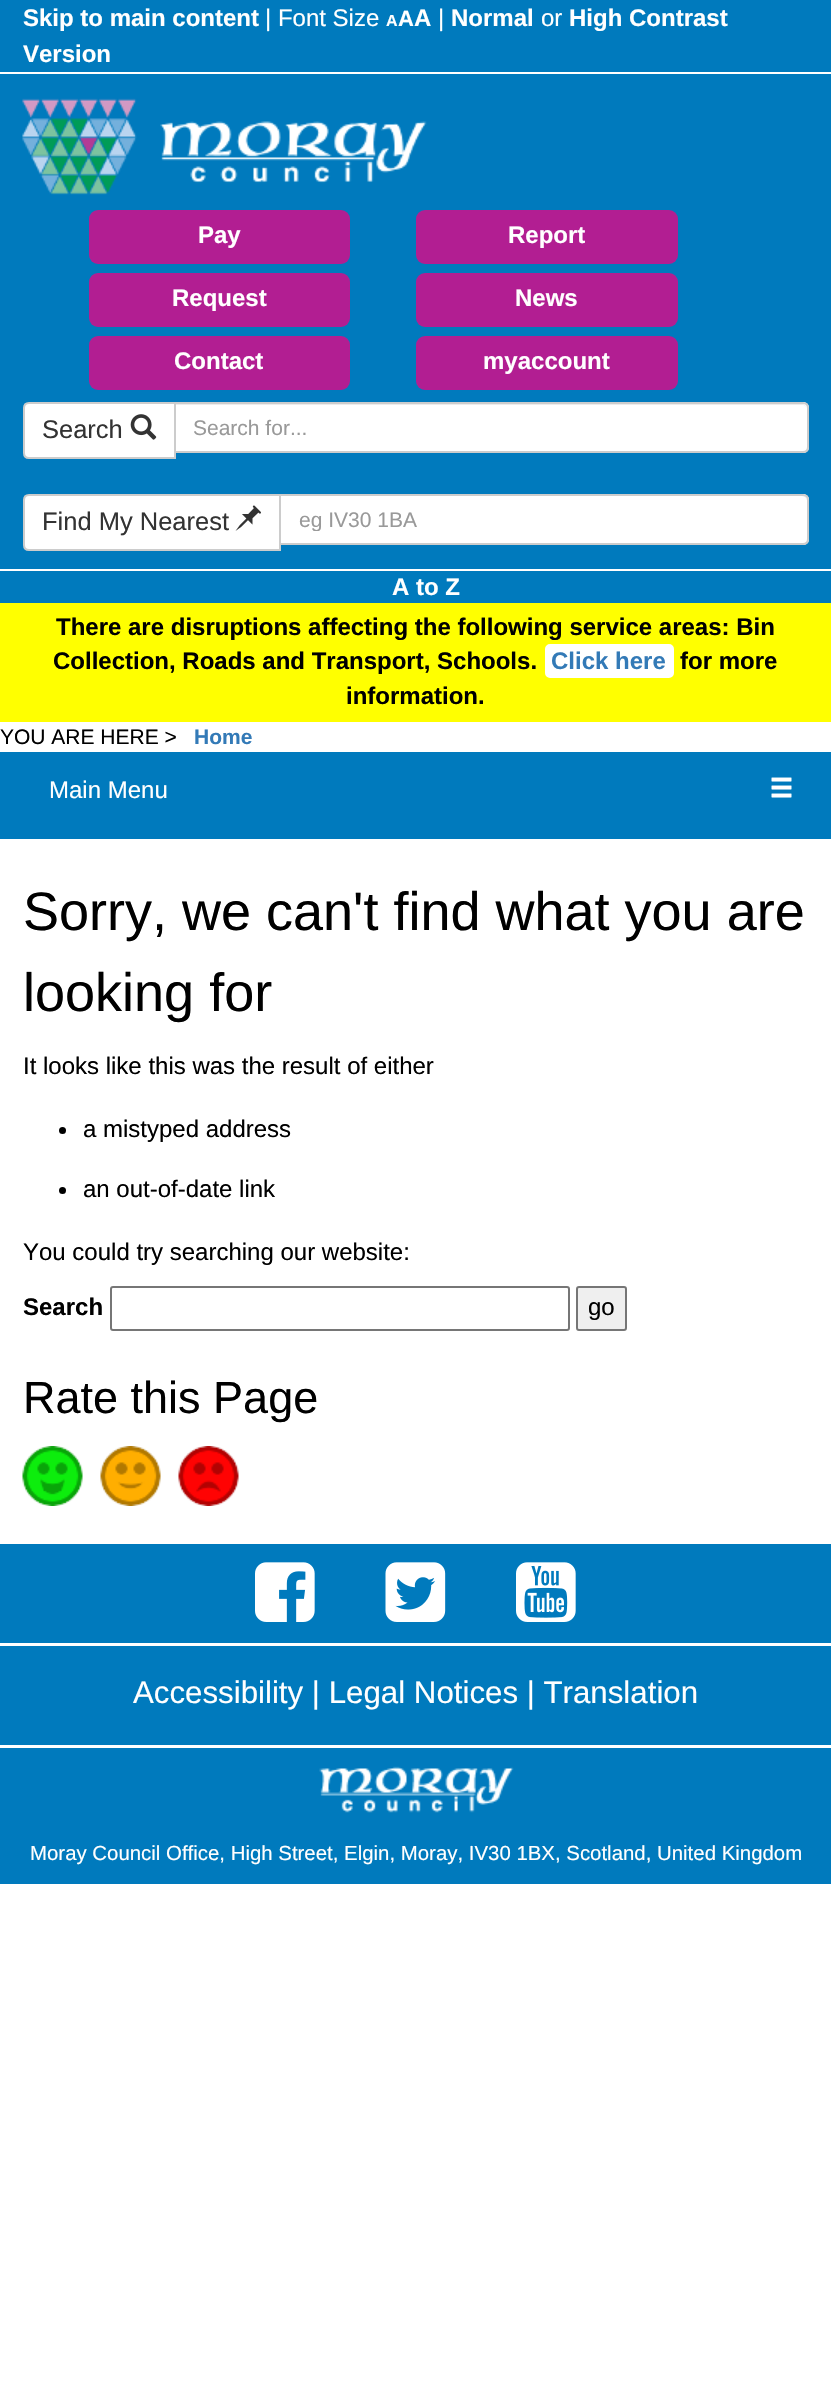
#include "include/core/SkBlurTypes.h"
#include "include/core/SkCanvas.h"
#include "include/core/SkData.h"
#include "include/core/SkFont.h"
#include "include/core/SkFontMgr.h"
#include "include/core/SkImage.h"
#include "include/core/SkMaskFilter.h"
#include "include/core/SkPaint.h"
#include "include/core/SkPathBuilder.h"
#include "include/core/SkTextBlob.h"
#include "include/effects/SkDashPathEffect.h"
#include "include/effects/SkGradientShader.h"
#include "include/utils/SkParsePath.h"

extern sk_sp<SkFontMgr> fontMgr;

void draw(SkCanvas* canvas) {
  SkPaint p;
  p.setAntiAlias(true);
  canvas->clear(SK_ColorWHITE);
  p.setColor(SkColorSetRGB(0, 122, 189));
  canvas->drawRect(SkRect::MakeLTRB(0, 0, 831, 569), p);
  p.setColor(SK_ColorWHITE);
  canvas->drawRect(SkRect::MakeLTRB(0, 72, 831, 74), p);
  canvas->drawImageRect(SkImages::DeferredFromEncodedData(SkData::MakeFromFileName("images/1.png")), SkRect::MakeLTRB(22, 98, 427, 195), SkSamplingOptions());
  p.setColor(SkColorSetRGB(178, 30, 146));
  canvas->drawRoundRect(SkRect::MakeLTRB(89, 210, 350, 264), 9, 9, p);
  canvas->drawRoundRect(SkRect::MakeLTRB(416, 210, 678, 264), 9, 9, p);
  canvas->drawRoundRect(SkRect::MakeLTRB(89, 273, 350, 327), 9, 9, p);
  canvas->drawRoundRect(SkRect::MakeLTRB(416, 273, 678, 327), 9, 9, p);
  canvas->drawRoundRect(SkRect::MakeLTRB(89, 336, 350, 390), 9, 9, p);
  canvas->drawRoundRect(SkRect::MakeLTRB(416, 336, 678, 390), 9, 9, p);
  p.setColor(SK_ColorWHITE);
  canvas->drawPath(SkPathBuilder().moveTo(29, 403).lineTo(175, 403).lineTo(175, 458).lineTo(29, 458).cubicTo(26, 458, 24, 456, 24, 453).lineTo(24, 408).cubicTo(24, 405, 26, 403, 29, 403).close().detach(), p);
  p.setStyle(SkPaint::kStroke_Style);
  p.setStrokeWidth(2);
  p.setColor(SkColorSetRGB(204, 204, 204));
  canvas->drawPath(SkPathBuilder().moveTo(29, 403).lineTo(175, 403).lineTo(175, 458).lineTo(29, 458).cubicTo(26, 458, 24, 456, 24, 453).lineTo(24, 408).cubicTo(24, 405, 26, 403, 29, 403).close().detach(), p);
  canvas->drawImageRect(SkImages::DeferredFromEncodedData(SkData::MakeFromFileName("images/2.png")), SkRect::MakeLTRB(130, 414, 157, 440), SkSamplingOptions());
  p.setStyle(SkPaint::kFill_Style);
  p.setColor(SK_ColorWHITE);
  canvas->drawPath(SkPathBuilder().moveTo(174, 402).lineTo(803, 402).cubicTo(806.5f, 402, 809, 404.5f, 809, 408).lineTo(809, 447).cubicTo(809, 450.5f, 806.5f, 453, 803, 453).lineTo(174, 453).close().detach(), p);
  p.setColor(SkColorSetRGB(236, 236, 236));
  canvas->drawPath(SkPathBuilder().moveTo(176, 405).lineTo(802, 405).cubicTo(805, 405, 807, 407, 807, 410).cubicTo(807, 407, 805, 404, 802, 404).lineTo(176, 404).close().detach(), p);
  p.setStyle(SkPaint::kStroke_Style);
  p.setColor(SkColorSetRGB(204, 204, 204));
  canvas->drawPath(SkPathBuilder().moveTo(175, 403).lineTo(803, 403).cubicTo(806, 403, 808, 405, 808, 408).lineTo(808, 447).cubicTo(808, 450, 806, 452, 803, 452).lineTo(175, 452).close().detach(), p);
  p.setStyle(SkPaint::kFill_Style);
  p.setColor(SK_ColorWHITE);
  canvas->drawPath(SkPathBuilder().moveTo(29, 495).lineTo(280, 495).lineTo(280, 550).lineTo(29, 550).cubicTo(26, 550, 24, 548, 24, 545).lineTo(24, 500).cubicTo(24, 497, 26, 495, 29, 495).close().detach(), p);
  p.setStyle(SkPaint::kStroke_Style);
  p.setColor(SkColorSetRGB(204, 204, 204));
  canvas->drawPath(SkPathBuilder().moveTo(29, 495).lineTo(280, 495).lineTo(280, 550).lineTo(29, 550).cubicTo(26, 550, 24, 548, 24, 545).lineTo(24, 500).cubicTo(24, 497, 26, 495, 29, 495).close().detach(), p);
  canvas->drawImageRect(SkImages::DeferredFromEncodedData(SkData::MakeFromFileName("images/3.png")), SkRect::MakeLTRB(235, 505, 261, 531), SkSamplingOptions());
  p.setStyle(SkPaint::kFill_Style);
  p.setColor(SK_ColorWHITE);
  canvas->drawPath(SkPathBuilder().moveTo(279, 494).lineTo(803, 494).cubicTo(806.5f, 494, 809, 496.5f, 809, 500).lineTo(809, 539).cubicTo(809, 542.5f, 806.5f, 545, 803, 545).lineTo(279, 545).close().detach(), p);
  p.setColor(SkColorSetRGB(236, 236, 236));
  canvas->drawPath(SkPathBuilder().moveTo(281, 495).lineTo(281, 496).lineTo(802, 496).cubicTo(805, 496, 807, 499, 807, 501).cubicTo(807, 498, 805, 495, 802, 495).close().detach(), p);
  p.setStyle(SkPaint::kStroke_Style);
  p.setColor(SkColorSetRGB(204, 204, 204));
  canvas->drawPath(SkPathBuilder().moveTo(280, 495).lineTo(803, 495).cubicTo(806, 495, 808, 497, 808, 500).lineTo(808, 539).cubicTo(808, 542, 806, 544, 803, 544).lineTo(280, 544).close().detach(), p);
  p.setStyle(SkPaint::kFill_Style);
  p.setColor(SkColorSetRGB(0, 122, 189));
  canvas->drawRect(SkRect::MakeLTRB(0, 571, 831, 603), p);
  p.setColor(SkColorSetRGB(255, 255, 0));
  canvas->drawRect(SkRect::MakeLTRB(0, 603, 831, 722), p);
  p.setColor(SK_ColorWHITE);
  canvas->drawRoundRect(SkRect::MakeLTRB(546, 645, 673, 677), 4, 4, p);
  p.setStyle(SkPaint::kStroke_Style);
  canvas->drawRoundRect(SkRect::MakeLTRB(546, 645, 673, 677), 4, 4, p);
  p.setStyle(SkPaint::kFill_Style);
  p.setColor(SkColorSetRGB(0, 122, 189));
  canvas->drawRect(SkRect::MakeLTRB(0, 752, 831, 839), p);
  canvas->drawImageRect(SkImages::DeferredFromEncodedData(SkData::MakeFromFileName("images/4.png")), SkRect::MakeLTRB(771, 777, 792, 798), SkSamplingOptions());
  p.setColor(SK_ColorBLACK);
  canvas->drawCircle(62.5f, 1130.5f, 3.5f, p);
  canvas->drawCircle(62.5f, 1190.5f, 3.5f, p);
  p.setStyle(SkPaint::kStroke_Style);
  p.setColor(SkColorSetRGB(118, 118, 118));
  canvas->drawRoundRect(SkRect::MakeLTRB(111, 1287, 569, 1330), 2, 2, p);
  p.setStyle(SkPaint::kFill_Style);
  p.setColor(SkColorSetRGB(239, 239, 239));
  canvas->drawRoundRect(SkRect::MakeLTRB(577, 1287, 626, 1330), 2, 2, p);
  p.setStyle(SkPaint::kStroke_Style);
  p.setColor(SkColorSetRGB(118, 118, 118));
  canvas->drawRoundRect(SkRect::MakeLTRB(577, 1287, 626, 1330), 2, 2, p);
  canvas->drawImageRect(SkImages::DeferredFromEncodedData(SkData::MakeFromFileName("images/5.png")), SkRect::MakeLTRB(22, 1446, 83, 1506), SkSamplingOptions());
  canvas->drawImageRect(SkImages::DeferredFromEncodedData(SkData::MakeFromFileName("images/6.png")), SkRect::MakeLTRB(100, 1446, 161, 1506), SkSamplingOptions());
  canvas->drawImageRect(SkImages::DeferredFromEncodedData(SkData::MakeFromFileName("images/7.png")), SkRect::MakeLTRB(178, 1446, 239, 1506), SkSamplingOptions());
  p.setStyle(SkPaint::kFill_Style);
  p.setColor(SkColorSetRGB(0, 122, 189));
  canvas->drawRect(SkRect::MakeLTRB(0, 1544, 831, 1745), p);
  p.setColor(SK_ColorWHITE);
  canvas->drawRect(SkRect::MakeLTRB(0, 1643, 831, 1646), p);
  canvas->drawImageRect(SkImages::DeferredFromEncodedData(SkData::MakeFromFileName("images/8.png")), SkRect::MakeLTRB(255, 1562, 315, 1622), SkSamplingOptions());
  canvas->drawImageRect(SkImages::DeferredFromEncodedData(SkData::MakeFromFileName("images/9.png")), SkRect::MakeLTRB(385, 1562, 446, 1622), SkSamplingOptions());
  canvas->drawImageRect(SkImages::DeferredFromEncodedData(SkData::MakeFromFileName("images/10.png")), SkRect::MakeLTRB(516, 1562, 576, 1622), SkSamplingOptions());
  p.setColor(SkColorSetRGB(0, 122, 189));
  canvas->drawRect(SkRect::MakeLTRB(0, 1748, 831, 1884), p);
  canvas->drawImageRect(SkImages::DeferredFromEncodedData(SkData::MakeFromFileName("images/11.png")), SkRect::MakeLTRB(319, 1766, 514, 1813), SkSamplingOptions());
  SkFont font1(fontMgr->matchFamilyStyle("Liberation Sans", SkFontStyle::Bold()), 24);
  font1.setSubpixel(true);
  p.setColor(SK_ColorWHITE);
  canvas->drawString("Skip to main content", 23, 26, font1, p);
  SkFont font2(fontMgr->matchFamilyStyle("Liberation Sans", SkFontStyle::Normal()), 24);
  font2.setSubpixel(true);
  canvas->drawString("| Font Size", 265, 26, font2, p);
  SkFont font3(fontMgr->matchFamilyStyle("Liberation Sans", SkFontStyle::Bold()), 16);
  font3.setSubpixel(true);
  canvas->drawString("A", 386, 26, font3, p);
  SkFont font4(fontMgr->matchFamilyStyle("Liberation Sans", SkFontStyle::Bold()), 22);
  font4.setSubpixel(true);
  canvas->drawString("A", 398, 26, font4, p);
  canvas->drawString("A", 414, 26, font1, p);
  canvas->drawString("|", 438, 26, font2, p);
  canvas->drawString("Normal", 451, 26, font1, p);
  canvas->drawString("or", 541, 26, font2, p);
  canvas->drawString("High Contrast", 569, 26, font1, p);
  canvas->drawString("Version", 23, 62, font1, p);
  canvas->drawString("Pay", 198, 243, font1, p);
  canvas->drawString("Report", 508, 243, font1, p);
  canvas->drawString("Request", 172, 306, font1, p);
  canvas->drawString("News", 515, 306, font1, p);
  canvas->drawString("Contact", 174, 369, font1, p);
  canvas->drawString("myaccount", 483, 369, font1, p);
  SkFont font5(fontMgr->matchFamilyStyle("Liberation Sans", SkFontStyle::Normal()), 25.5f);
  font5.setSubpixel(true);
  p.setColor(SkColorSetRGB(51, 51, 51));
  canvas->drawString("Search", 42, 438, font5, p);
  SkFont font6(fontMgr->matchFamilyStyle("Liberation Sans", SkFontStyle::Normal()), 21);
  font6.setSubpixel(true);
  p.setColor(SkColorSetRGB(153, 153, 153));
  canvas->drawString("Search for...", 193, 435, font6, p);
  p.setColor(SkColorSetRGB(51, 51, 51));
  canvas->drawString("Find My Nearest", 42, 530, font5, p);
  canvas->save();
  canvas->clipRect(SkRect::MakeLTRB(299, 507, 789, 531));
  p.setColor(SkColorSetRGB(153, 153, 153));
  canvas->drawString("eg IV30 1BA", 299, 527, font6, p);
  canvas->restore();
  p.setColor(SK_ColorWHITE);
  canvas->drawString("A to Z", 392, 595, font1, p);
  p.setColor(SK_ColorBLACK);
  canvas->drawString("There are disruptions affecting the following service areas: Bin", 56, 635, font1, p);
  canvas->drawString("Collection, Roads and Transport, Schools.", 53, 669, font1, p);
  p.setColor(SkColorSetRGB(51, 122, 183));
  canvas->drawString("Click here", 551, 669, font1, p);
  p.setColor(SK_ColorBLACK);
  canvas->drawString("for more", 680, 669, font1, p);
  canvas->drawString("information.", 346, 704, font1, p);
  canvas->drawString("YOU ARE HERE >", 0, 744, font6, p);
  SkFont font7(fontMgr->matchFamilyStyle("Liberation Sans", SkFontStyle::Bold()), 21);
  font7.setSubpixel(true);
  p.setColor(SkColorSetRGB(51, 122, 183));
  canvas->drawString("Home", 194, 744, font7, p);
  p.setColor(SK_ColorWHITE);
  canvas->drawString("Main Menu", 49, 798, font2, p);
  SkFont font8(fontMgr->matchFamilyStyle("Liberation Sans", SkFontStyle::Normal()), 54);
  font8.setSubpixel(true);
  p.setColor(SK_ColorBLACK);
  canvas->drawString("Sorry, we can't find what you are", 23, 930, font8, p);
  canvas->drawString("looking for", 23, 1011, font8, p);
  canvas->drawString("It looks like this was the result of either", 23, 1074, font2, p);
  canvas->drawString("a mistyped address", 83, 1137, font2, p);
  canvas->drawString("an out-of-date link", 83, 1197, font2, p);
  canvas->drawString("You could try searching our website:", 23, 1260, font2, p);
  canvas->drawString("Search", 23, 1315, font1, p);
  canvas->drawString("go", 588, 1315, font2, p);
  SkFont font9(fontMgr->matchFamilyStyle("Liberation Sans", SkFontStyle::Normal()), 45);
  font9.setSubpixel(true);
  canvas->drawString("Rate this Page", 23, 1413, font9, p);
  SkFont font10(fontMgr->matchFamilyStyle("Liberation Sans", SkFontStyle::Normal()), 31.25f);
  font10.setSubpixel(true);
  p.setColor(SK_ColorWHITE);
  canvas->drawString("Accessibility | Legal Notices | Translation", 133, 1703, font10, p);
  SkFont font11(fontMgr->matchFamilyStyle("Liberation Sans", SkFontStyle::Normal()), 20.4f);
  font11.setSubpixel(true);
  canvas->drawString("Moray Council Office, High Street, Elgin, Moray, IV30 1BX, Scotland, United Kingdom", 30, 1860, font11, p);
}
